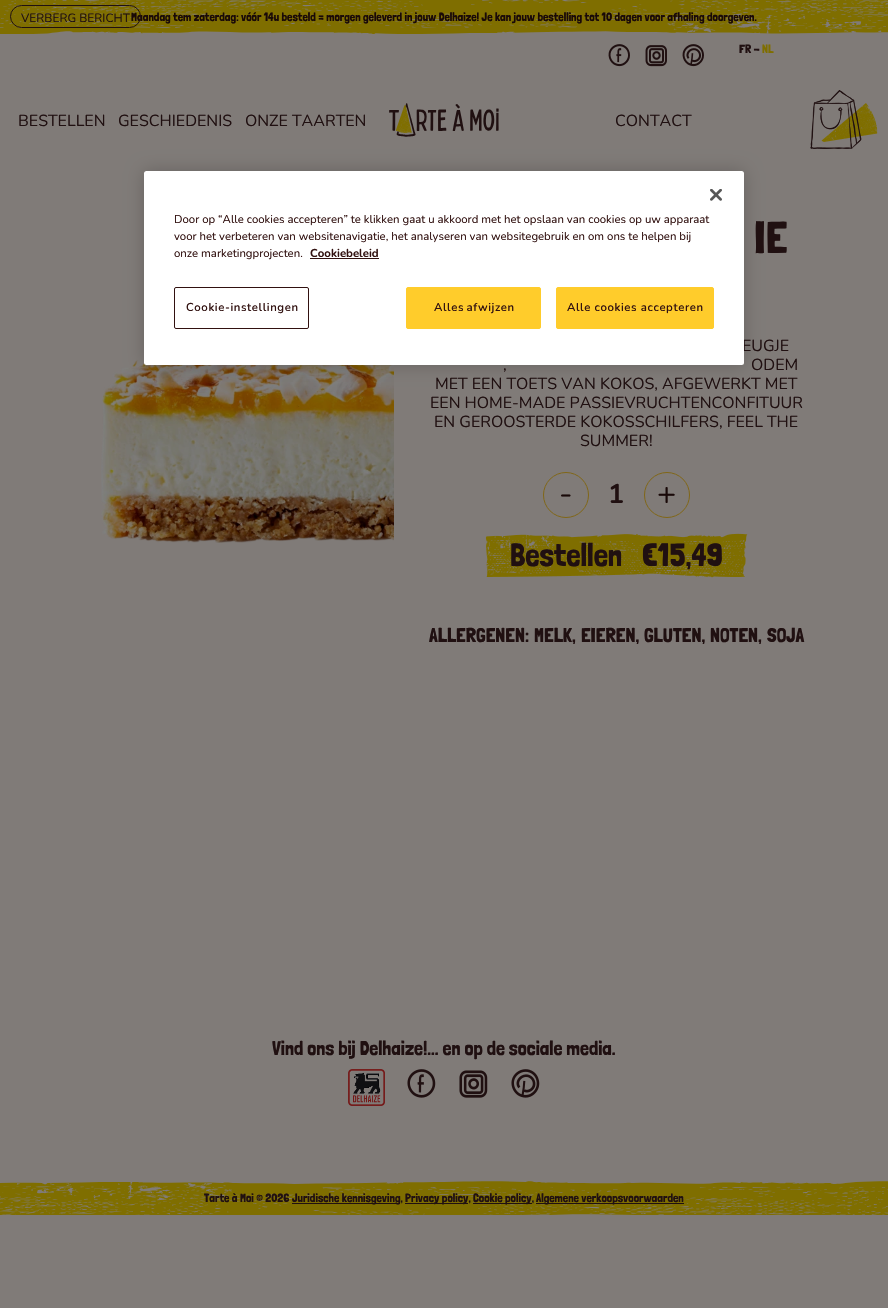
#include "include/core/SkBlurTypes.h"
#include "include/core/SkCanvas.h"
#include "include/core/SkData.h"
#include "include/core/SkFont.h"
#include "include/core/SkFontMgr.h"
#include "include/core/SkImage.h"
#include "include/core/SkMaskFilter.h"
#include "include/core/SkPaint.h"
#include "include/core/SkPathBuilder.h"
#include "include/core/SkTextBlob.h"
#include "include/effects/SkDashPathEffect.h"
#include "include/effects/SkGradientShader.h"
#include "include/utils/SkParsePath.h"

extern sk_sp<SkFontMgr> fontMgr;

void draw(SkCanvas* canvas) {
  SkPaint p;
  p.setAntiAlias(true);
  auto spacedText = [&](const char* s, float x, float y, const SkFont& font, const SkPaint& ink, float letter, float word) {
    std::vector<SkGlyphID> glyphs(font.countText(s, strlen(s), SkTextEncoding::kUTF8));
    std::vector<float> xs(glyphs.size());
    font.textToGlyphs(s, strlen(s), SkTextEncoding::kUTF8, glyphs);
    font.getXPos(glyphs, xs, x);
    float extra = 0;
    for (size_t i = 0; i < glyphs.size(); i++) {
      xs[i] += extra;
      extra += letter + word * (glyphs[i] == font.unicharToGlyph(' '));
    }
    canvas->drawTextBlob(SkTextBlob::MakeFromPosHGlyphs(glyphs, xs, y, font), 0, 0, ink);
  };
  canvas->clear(SkColorSetRGB(128, 123, 120));
  canvas->drawImageRect(SkImages::DeferredFromEncodedData(SkData::MakeFromFileName("images/1.png")), SkRect::MakeLTRB(0, 0, 888, 34), SkSamplingOptions());
  canvas->drawImageRect(SkImages::DeferredFromEncodedData(SkData::MakeFromFileName("images/2.png")), SkRect::MakeLTRB(608, 44, 630, 67), SkSamplingOptions());
  canvas->drawImageRect(SkImages::DeferredFromEncodedData(SkData::MakeFromFileName("images/3.png")), SkRect::MakeLTRB(645, 45, 667, 67), SkSamplingOptions());
  canvas->drawImageRect(SkImages::DeferredFromEncodedData(SkData::MakeFromFileName("images/4.png")), SkRect::MakeLTRB(682, 44, 704, 67), SkSamplingOptions());
  canvas->drawImageRect(SkImages::DeferredFromEncodedData(SkData::MakeFromFileName("images/5.png")), SkRect::MakeLTRB(389, 103, 499, 137), SkSamplingOptions());
  canvas->drawImageRect(SkImages::DeferredFromEncodedData(SkData::MakeFromFileName("images/6.png")), SkRect::MakeLTRB(810, 90, 878, 149), SkSamplingOptions());
  canvas->drawImageRect(SkImages::DeferredFromEncodedData(SkData::MakeFromFileName("images/8.png")), SkRect::MakeLTRB(101, 359, 394, 543), SkSamplingOptions());
  p.setColor(SkColorSetARGB(51, 0, 0, 0));
  p.setMaskFilter(SkMaskFilter::MakeBlur(kNormal_SkBlurStyle, 9));
  canvas->drawRoundRect(SkRect::MakeLTRB(144, 171, 744, 365), 2.5f, 2.5f, p);
  p.setMaskFilter(nullptr);
  p.setStyle(SkPaint::kStroke_Style);
  p.setStrokeWidth(1);
  p.setColor(SkColorSetRGB(128, 102, 22));
  canvas->drawCircle(566, 495, 22.5f, p);
  canvas->drawCircle(667, 495, 22.5f, p);
  canvas->drawImageRect(SkImages::DeferredFromEncodedData(SkData::MakeFromFileName("images/9.png")), SkRect::MakeLTRB(485, 533, 748, 578), SkSamplingOptions());
  canvas->drawImageRect(SkImages::DeferredFromEncodedData(SkData::MakeFromFileName("images/10.png")), SkRect::MakeLTRB(348, 1069, 385, 1106), SkSamplingOptions());
  canvas->drawImageRect(SkImages::DeferredFromEncodedData(SkData::MakeFromFileName("images/11.png")), SkRect::MakeLTRB(407, 1069, 436, 1098), SkSamplingOptions());
  canvas->drawImageRect(SkImages::DeferredFromEncodedData(SkData::MakeFromFileName("images/12.png")), SkRect::MakeLTRB(459, 1070, 488, 1098), SkSamplingOptions());
  canvas->drawImageRect(SkImages::DeferredFromEncodedData(SkData::MakeFromFileName("images/13.png")), SkRect::MakeLTRB(511, 1069, 540, 1098), SkSamplingOptions());
  canvas->drawImageRect(SkImages::DeferredFromEncodedData(SkData::MakeFromFileName("images/14.png")), SkRect::MakeLTRB(0, 1181, 888, 1215), SkSamplingOptions());
  p.setStyle(SkPaint::kFill_Style);
  p.setColor(SkColorSetRGB(32, 16, 17));
  canvas->drawRect(SkRect::MakeLTRB(292, 1203, 400, 1204), p);
  canvas->drawRect(SkRect::MakeLTRB(405, 1203, 468, 1204), p);
  canvas->drawRect(SkRect::MakeLTRB(473, 1203, 532, 1204), p);
  canvas->drawRect(SkRect::MakeLTRB(536, 1203, 684, 1204), p);
  SkFont font1(fontMgr->matchFamilyStyle("Londrina Solid", SkFontStyle::Normal()), 12);
  font1.setSubpixel(true);
  p.setColor(SkColorSetRGB(25, 9, 8));
  canvas->drawString("Maandag tem zaterdag: vóór 14u besteld = morgen geleverd in jouw Delhaize! Je kan jouw bestelling tot 10 dagen voor afhaling doorgeven.", 131, 21, font1, p);
  p.setStyle(SkPaint::kStroke_Style);
  p.setColor(SkColorSetRGB(32, 16, 17));
  canvas->drawRoundRect(SkRect::MakeLTRB(10.5f, 5.5f, 140.5f, 27.5f), 11, 11, p);
  SkFont font2(fontMgr->matchFamilyStyle("Nunito", SkFontStyle::Normal()), 12);
  font2.setSubpixel(true);
  p.setStyle(SkPaint::kFill_Style);
  canvas->drawString("VERBERG BERICHT", 21, 22, font2, p);
  canvas->drawString("FR -", 739, 53, font1, p);
  p.setColor(SkColorSetRGB(127, 110, 0));
  canvas->drawString("NL", 762, 53, font1, p);
  SkFont font3(fontMgr->matchFamilyStyle("Nunito", SkFontStyle::Normal()), 16);
  font3.setSubpixel(true);
  p.setColor(SkColorSetRGB(32, 16, 17));
  canvas->drawString("BESTELLEN", 18, 126, font3, p);
  canvas->drawString("GESCHIEDENIS", 118, 126, font3, p);
  canvas->drawString("ONZE TAARTEN", 245, 126, font3, p);
  canvas->drawString("CONTACT", 615, 126, font3, p);
  SkFont font4(fontMgr->matchFamilyStyle("Londrina Solid", SkFontStyle::Normal()), 45);
  font4.setSubpixel(true);
  canvas->drawString("IE", 754, 253, font4, p);
  canvas->drawString("EUGJE", 742, 351, font3, p);
  p.setColor(SK_ColorWHITE);
  canvas->drawRoundRect(SkRect::MakeLTRB(144, 171, 744, 365), 2.5f, 2.5f, p);
  canvas->drawImageRect(SkImages::DeferredFromEncodedData(SkData::MakeFromFileName("images/7.png")), SkRect::MakeLTRB(710, 189, 722, 201), SkSamplingOptions());
  p.setStyle(SkPaint::kStroke_Style);
  p.setColor(SkColorSetRGB(49, 17, 16));
  canvas->drawRoundRect(SkRect::MakeLTRB(174.5f, 287.5f, 308.5f, 328.5f), 1.5f, 1.5f, p);
  SkFont font5(fontMgr->matchFamilyStyle("Nunito", SkFontStyle(600, SkFontStyle::kNormal_Width, SkFontStyle::kUpright_Slant)), 11.4f);
  font5.setSubpixel(true);
  p.setStyle(SkPaint::kFill_Style);
  spacedText("Cookie-instellingen", 186, 311, font5, p, 0.6f, 0);
  p.setColor(SkColorSetRGB(255, 204, 43));
  canvas->drawRoundRect(SkRect::MakeLTRB(556.5f, 287.5f, 713.5f, 328.5f), 1.5f, 1.5f, p);
  p.setStyle(SkPaint::kStroke_Style);
  canvas->drawRoundRect(SkRect::MakeLTRB(556.5f, 287.5f, 713.5f, 328.5f), 1.5f, 1.5f, p);
  p.setStyle(SkPaint::kFill_Style);
  p.setColor(SkColorSetRGB(49, 17, 16));
  spacedText("Alle cookies accepteren", 567, 311, font5, p, 0.6f, 0);
  p.setColor(SkColorSetRGB(255, 204, 43));
  canvas->drawRoundRect(SkRect::MakeLTRB(406.5f, 287.5f, 540.5f, 328.5f), 1.5f, 1.5f, p);
  p.setStyle(SkPaint::kStroke_Style);
  canvas->drawRoundRect(SkRect::MakeLTRB(406.5f, 287.5f, 540.5f, 328.5f), 1.5f, 1.5f, p);
  p.setStyle(SkPaint::kFill_Style);
  p.setColor(SkColorSetRGB(49, 17, 16));
  spacedText("Alles afwijzen", 434, 311, font5, p, 0.6f, -1);
  SkFont font6(fontMgr->matchFamilyStyle("Nunito", SkFontStyle::Bold()), 11.4f);
  font6.setSubpixel(true);
  canvas->drawString("Cookiebeleid", 310, 257, font6, p);
  canvas->drawRect(SkRect::MakeLTRB(310, 258, 379, 259), p);
  SkFont font7(fontMgr->matchFamilyStyle("Nunito", SkFontStyle::Normal()), 11.4f);
  font7.setSubpixel(true);
  canvas->drawString("onze marketingprojecten.", 174, 257, font7, p);
  canvas->drawString("voor het verbeteren van websitenavigatie, het analyseren van websitegebruik en om ons te helpen bij", 174, 240, font7, p);
  canvas->drawString("Door op “Alle cookies accepteren” te klikken gaat u akkoord met het opslaan van cookies op uw apparaat", 174, 223, font7, p);
  p.setColor(SkColorSetRGB(32, 16, 17));
  canvas->drawString(",", 503, 370, font3, p);
  canvas->drawString("ODEM", 751, 370, font3, p);
  canvas->drawString("MET EEN TOETS VAN KOKOS, AFGEWERKT MET", 435, 389, font3, p);
  canvas->drawString("EEN HOME-MADE PASSIEVRUCHTENCONFITUUR", 430, 408, font3, p);
  canvas->drawString("EN GEROOSTERDE KOKOSSCHILFERS, FEEL THE", 434, 427, font3, p);
  canvas->drawString("SUMMER!", 580, 446, font3, p);
  SkFont font8(fontMgr->matchFamilyStyle("Nunito", SkFontStyle::Normal()), 32);
  font8.setSubpixel(true);
  p.setColor(SkColorSetRGB(25, 9, 8));
  canvas->drawString("-", 559, 504, font8, p);
  SkFont font9(fontMgr->matchFamilyStyle("Nunito", SkFontStyle::Bold()), 27);
  font9.setSubpixel(true);
  p.setColor(SkColorSetRGB(32, 16, 17));
  canvas->drawString("1", 608, 503, font9, p);
  p.setColor(SkColorSetRGB(25, 9, 8));
  canvas->drawString("+", 657, 504, font8, p);
  SkFont font10(fontMgr->matchFamilyStyle("Londrina Solid", SkFontStyle::Normal()), 32);
  font10.setSubpixel(true);
  p.setColor(SkColorSetRGB(32, 16, 17));
  canvas->drawString("Bestellen", 510, 566, font10, p);
  canvas->drawString("€15,49", 642, 566, font10, p);
  SkFont font11(fontMgr->matchFamilyStyle("Londrina Solid", SkFontStyle::Normal()), 20);
  font11.setSubpixel(true);
  canvas->drawString("ALLERGENEN:", 429, 642, font11, p);
  canvas->drawString("MELK,", 534, 642, font11, p);
  canvas->drawString("EIEREN,", 581, 642, font11, p);
  canvas->drawString("GLUTEN,", 644, 642, font11, p);
  canvas->drawString("NOTEN,", 710, 642, font11, p);
  canvas->drawString("SOJA", 767, 642, font11, p);
  canvas->drawString("Vind ons bij Delhaize!... en op de sociale media.", 272, 1055, font11, p);
  canvas->drawString("Tarte à Moi © 2026", 204, 1202, font1, p);
  canvas->drawString("Juridische kennisgeving,", 292, 1202, font1, p);
  canvas->drawString("Privacy policy,", 405, 1202, font1, p);
  canvas->drawString("Cookie policy,", 473, 1202, font1, p);
  canvas->drawString("Algemene verkoopsvoorwaarden", 536, 1202, font1, p);
}
